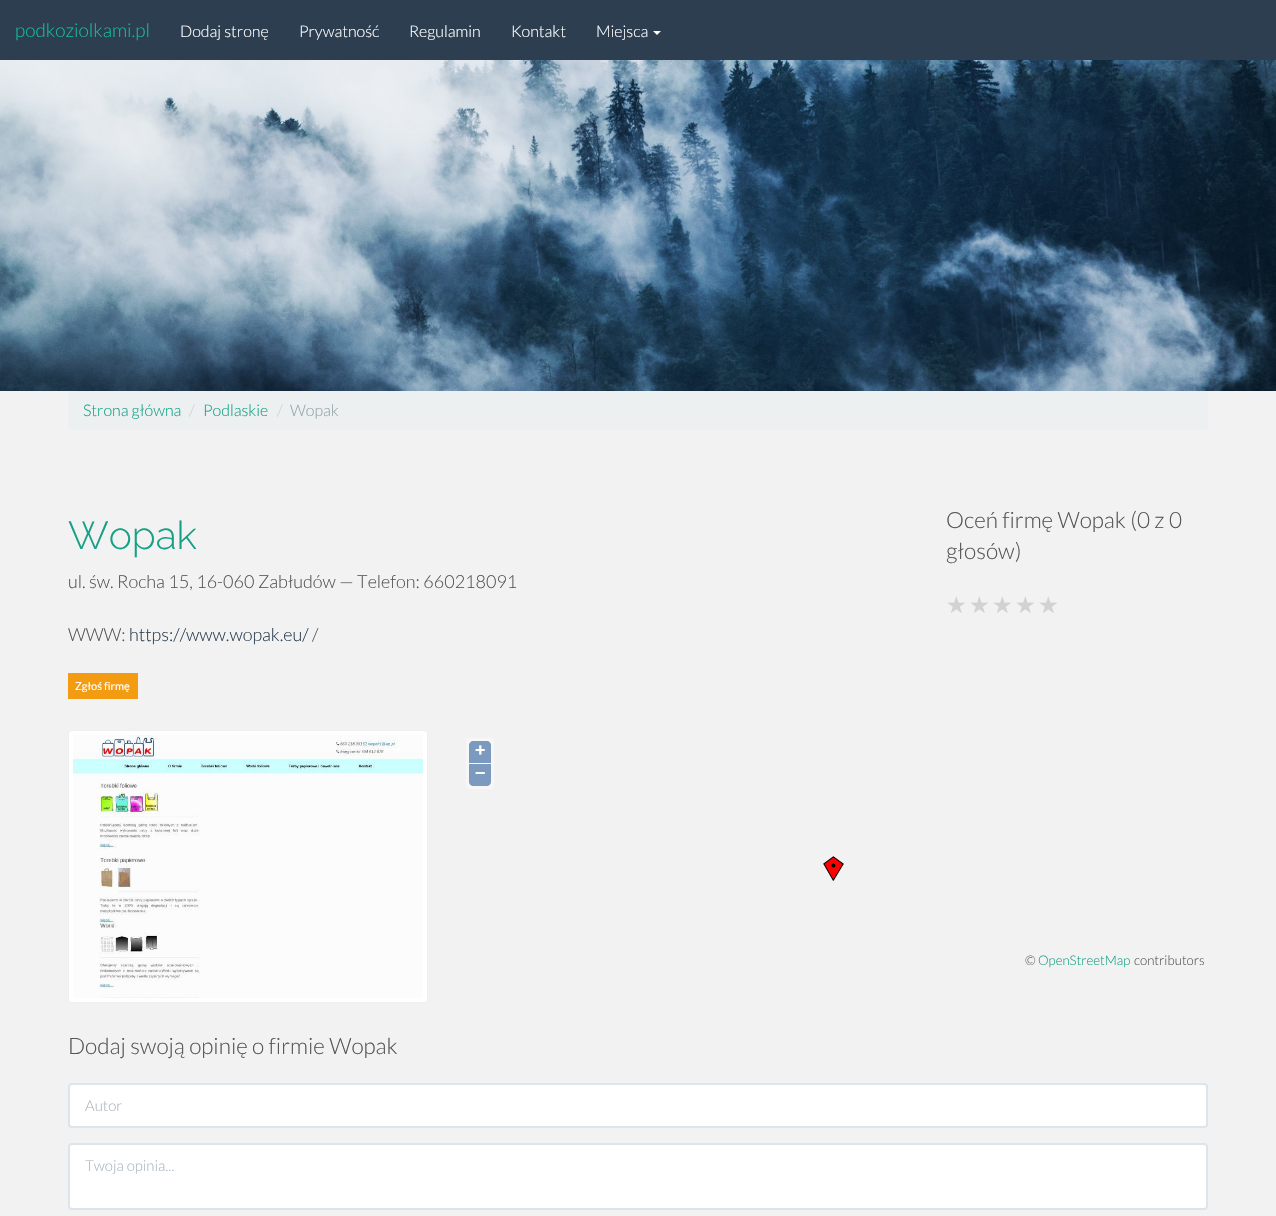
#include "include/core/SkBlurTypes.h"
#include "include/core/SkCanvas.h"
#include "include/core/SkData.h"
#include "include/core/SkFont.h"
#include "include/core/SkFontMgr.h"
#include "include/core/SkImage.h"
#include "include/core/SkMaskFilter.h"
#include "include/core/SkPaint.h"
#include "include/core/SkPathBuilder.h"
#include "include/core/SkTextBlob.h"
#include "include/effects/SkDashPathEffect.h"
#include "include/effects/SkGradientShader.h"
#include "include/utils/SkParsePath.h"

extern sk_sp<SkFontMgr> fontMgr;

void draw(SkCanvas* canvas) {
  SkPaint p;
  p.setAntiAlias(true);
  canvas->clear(SkColorSetRGB(242, 242, 242));
  p.setColor(SkColorSetRGB(44, 62, 80));
  canvas->drawRect(SkRect::MakeLTRB(0, 0, 1276, 60), p);
  p.setColor(SK_ColorWHITE);
  canvas->drawPath(SkPathBuilder().moveTo(653, 31).lineTo(661, 31).lineTo(657, 35).close().detach(), p);
  canvas->drawImageRect(SkImages::DeferredFromEncodedData(SkData::MakeFromFileName("images/1.png")), SkRect::MakeLTRB(0, 60, 1276, 391), SkSamplingOptions());
  p.setColor(SkColorSetRGB(236, 240, 241));
  canvas->drawRoundRect(SkRect::MakeLTRB(68, 391, 1208, 430), 4, 4, p);
  p.setColor(SkColorSetRGB(243, 156, 18));
  canvas->drawRect(SkRect::MakeLTRB(68, 673, 138, 699), p);
  p.setColor(SK_ColorWHITE);
  canvas->drawRoundRect(SkRect::MakeLTRB(68.5f, 730.5f, 427.5f, 1002.5f), 3.5f, 3.5f, p);
  p.setStyle(SkPaint::kStroke_Style);
  p.setStrokeWidth(1);
  p.setColor(SkColorSetRGB(236, 240, 241));
  canvas->drawRoundRect(SkRect::MakeLTRB(68.5f, 730.5f, 427.5f, 1002.5f), 3.5f, 3.5f, p);
  canvas->drawImageRect(SkImages::DeferredFromEncodedData(SkData::MakeFromFileName("images/2.png")), SkRect::MakeLTRB(73, 735, 423, 998), SkSamplingOptions());
  p.setStyle(SkPaint::kFill_Style);
  p.setColor(SkColorSetRGB(247, 247, 247));
  canvas->drawRoundRect(SkRect::MakeLTRB(466, 738, 494, 789), 4, 4, p);
  p.setColor(SkColorSetRGB(124, 154, 192));
  canvas->drawPath(SkPathBuilder().moveTo(473, 741).lineTo(487, 741).cubicTo(489, 741, 491, 743, 491, 745).lineTo(491, 763).lineTo(469, 763).lineTo(469, 745).cubicTo(469, 743, 471, 741, 473, 741).close().detach(), p);
  canvas->drawPath(SkPathBuilder().moveTo(469, 764).lineTo(491, 764).lineTo(491, 782).cubicTo(491, 784, 489, 786, 487, 786).lineTo(473, 786).cubicTo(471, 786, 469, 784, 469, 782).close().detach(), p);
  canvas->drawImageRect(SkImages::DeferredFromEncodedData(SkData::MakeFromFileName("images/3.png")), SkRect::MakeLTRB(823, 856, 844, 881), SkSamplingOptions());
  p.setColor(SK_ColorWHITE);
  canvas->drawRoundRect(SkRect::MakeLTRB(69, 1084, 1207, 1127), 3, 3, p);
  p.setStyle(SkPaint::kStroke_Style);
  p.setStrokeWidth(2);
  p.setColor(SkColorSetRGB(220, 228, 236));
  canvas->drawRoundRect(SkRect::MakeLTRB(69, 1084, 1207, 1127), 3, 3, p);
  p.setStyle(SkPaint::kFill_Style);
  p.setColor(SK_ColorWHITE);
  canvas->drawRoundRect(SkRect::MakeLTRB(69, 1144, 1207, 1209), 3, 3, p);
  p.setStyle(SkPaint::kStroke_Style);
  p.setColor(SkColorSetRGB(220, 228, 236));
  canvas->drawRoundRect(SkRect::MakeLTRB(69, 1144, 1207, 1209), 3, 3, p);
  SkFont font1(fontMgr->matchFamilyStyle("Lato", SkFontStyle(300, SkFontStyle::kNormal_Width, SkFontStyle::kUpright_Slant)), 19);
  font1.setSubpixel(true);
  p.setStyle(SkPaint::kFill_Style);
  p.setColor(SkColorSetRGB(24, 188, 156));
  canvas->drawString("podkoziolkami.pl", 15, 37, font1, p);
  SkFont font2(fontMgr->matchFamilyStyle("Lato", SkFontStyle(300, SkFontStyle::kNormal_Width, SkFontStyle::kUpright_Slant)), 16);
  font2.setSubpixel(true);
  p.setColor(SK_ColorWHITE);
  canvas->drawString("Dodaj stronę", 180, 37, font2, p);
  canvas->drawString("Prywatność", 299, 37, font2, p);
  canvas->drawString("Regulamin", 409, 37, font2, p);
  canvas->drawString("Kontakt", 511, 37, font2, p);
  canvas->drawString("Miejsca", 596, 37, font2, p);
  p.setColor(SkColorSetRGB(22, 160, 133));
  canvas->drawString("Strona główna", 83, 416, font2, p);
  p.setColor(SkColorSetRGB(204, 204, 204));
  canvas->drawString("/", 189, 416, font2, p);
  p.setColor(SkColorSetRGB(22, 160, 133));
  canvas->drawString("Podlaskie", 203, 416, font2, p);
  p.setColor(SkColorSetRGB(204, 204, 204));
  canvas->drawString("/", 277, 416, font2, p);
  p.setColor(SkColorSetRGB(149, 165, 166));
  canvas->drawString("Wopak", 290, 416, font2, p);
  SkFont font3(fontMgr->matchFamilyStyle("Raleway", SkFontStyle(300, SkFontStyle::kNormal_Width, SkFontStyle::kUpright_Slant)), 39);
  font3.setSubpixel(true);
  p.setColor(SkColorSetRGB(22, 160, 133));
  canvas->drawString("Wopak", 68, 549, font3, p);
  SkFont font4(fontMgr->matchFamilyStyle("Lato", SkFontStyle(300, SkFontStyle::kNormal_Width, SkFontStyle::kUpright_Slant)), 18);
  font4.setSubpixel(true);
  p.setColor(SkColorSetRGB(85, 85, 85));
  canvas->drawString("ul. św. Rocha 15, 16-060 Zabłudów — Telefon: 660218091", 68, 588, font4, p);
  canvas->drawString("WWW:", 68, 641, font4, p);
  p.setColor(SkColorSetRGB(44, 62, 80));
  canvas->drawString("https://www.wopak.eu/", 129, 641, font4, p);
  p.setColor(SkColorSetRGB(85, 85, 85));
  canvas->drawString("/", 312, 641, font4, p);
  SkFont font5(fontMgr->matchFamilyStyle("Lato", SkFontStyle::Normal()), 11);
  font5.setSubpixel(true);
  p.setColor(SK_ColorWHITE);
  canvas->drawString("Zgłoś firmę", 75, 690, font5, p);
  SkFont font6(fontMgr->matchFamilyStyle("Lato", SkFontStyle(300, SkFontStyle::kNormal_Width, SkFontStyle::kUpright_Slant)), 22.5f);
  font6.setSubpixel(true);
  p.setColor(SkColorSetRGB(85, 85, 85));
  canvas->drawString("Oceń firmę Wopak (0 z 0", 946, 528, font6, p);
  canvas->drawString("głosów)", 946, 559, font6, p);
  SkFont font7(fontMgr->matchFamilyStyle("DejaVu Sans", SkFontStyle::Normal()), 23);
  font7.setSubpixel(true);
  p.setColor(SkColorSetRGB(210, 210, 210));
  canvas->drawString("★", 946, 613, font7, p);
  canvas->drawString("★", 969, 613, font7, p);
  canvas->drawString("★", 992, 613, font7, p);
  canvas->drawString("★", 1015, 613, font7, p);
  canvas->drawString("★", 1038, 613, font7, p);
  SkFont font8(fontMgr->matchFamilyStyle("Liberation Sans", SkFontStyle::Bold()), 18);
  font8.setSubpixel(true);
  p.setColor(SK_ColorWHITE);
  canvas->drawString("+", 475, 756, font8, p);
  canvas->drawString("−", 475, 779, font8, p);
  SkFont font9(fontMgr->matchFamilyStyle("Lato", SkFontStyle(300, SkFontStyle::kNormal_Width, SkFontStyle::kUpright_Slant)), 13.25f);
  font9.setSubpixel(true);
  p.setColor(SkColorSetRGB(85, 85, 85));
  canvas->drawString("©", 1025, 965, font9, p);
  p.setColor(SkColorSetRGB(22, 160, 133));
  canvas->drawString("OpenStreetMap", 1038, 965, font9, p);
  p.setColor(SkColorSetRGB(85, 85, 85));
  canvas->drawString("contributors", 1134, 965, font9, p);
  canvas->drawString("Dodaj swoją opinię o firmie Wopak", 68, 1054, font6, p);
  SkFont font10(fontMgr->matchFamilyStyle("Lato", SkFontStyle(300, SkFontStyle::kNormal_Width, SkFontStyle::kUpright_Slant)), 15);
  font10.setSubpixel(true);
  p.setColor(SkColorSetRGB(172, 182, 192));
  canvas->drawString("Autor", 85, 1111, font10, p);
  canvas->drawString("Twoja opinia...", 85, 1171, font10, p);
}
